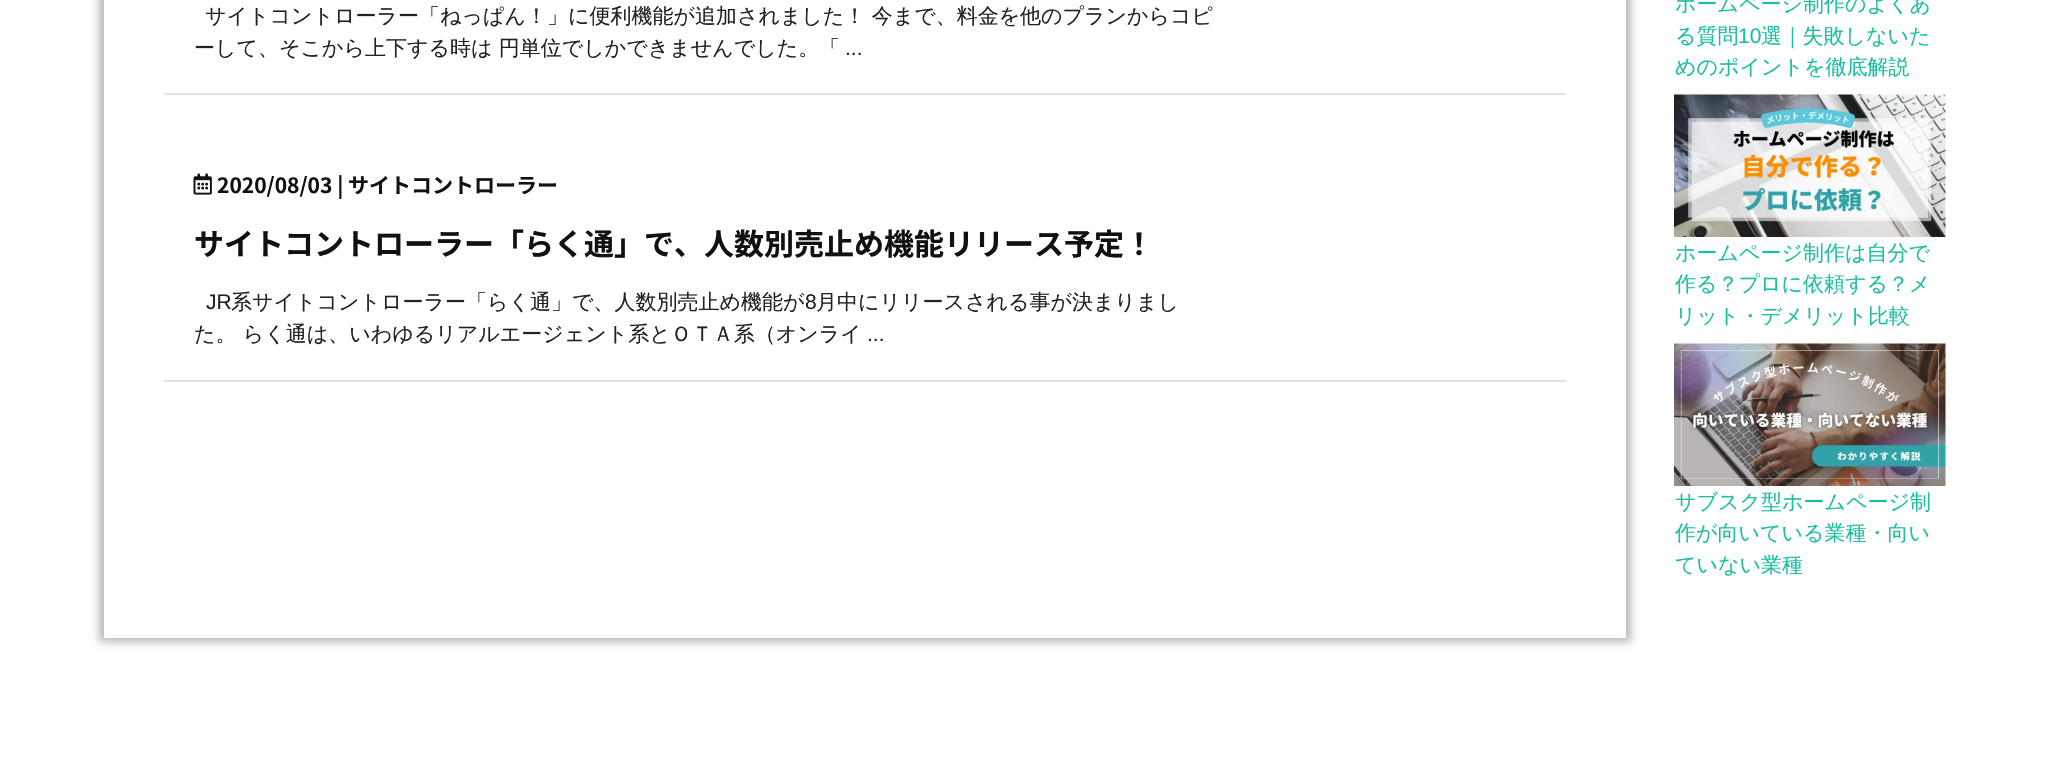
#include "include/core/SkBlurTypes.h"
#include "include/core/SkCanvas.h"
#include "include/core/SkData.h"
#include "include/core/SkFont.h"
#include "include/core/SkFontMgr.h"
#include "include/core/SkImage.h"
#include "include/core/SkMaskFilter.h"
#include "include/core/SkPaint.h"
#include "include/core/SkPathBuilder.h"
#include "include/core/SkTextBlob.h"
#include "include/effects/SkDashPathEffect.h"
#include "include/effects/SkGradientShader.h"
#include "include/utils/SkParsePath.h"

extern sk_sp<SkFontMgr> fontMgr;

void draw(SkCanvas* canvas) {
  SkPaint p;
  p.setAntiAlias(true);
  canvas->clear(SK_ColorWHITE);
  p.setColor(SkColorSetRGB(186, 186, 186));
  p.setMaskFilter(SkMaskFilter::MakeBlur(kNormal_SkBlurStyle, 4));
  canvas->drawRect(SkRect::MakeLTRB(99, -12, 1631, 642), p);
  p.setMaskFilter(nullptr);
  p.setColor(SK_ColorWHITE);
  canvas->drawRect(SkRect::MakeLTRB(104, 0, 1626, 638), p);
  p.setColor(SkColorSetRGB(226, 226, 226));
  canvas->drawRect(SkRect::MakeLTRB(164, 93, 1566, 95), p);
  canvas->drawRect(SkRect::MakeLTRB(164, 380, 1566, 382), p);
  canvas->drawImageRect(SkImages::DeferredFromEncodedData(SkData::MakeFromFileName("images/1.png")), SkRect::MakeLTRB(193, 173, 212, 195), SkSamplingOptions());
  canvas->drawImageRect(SkImages::DeferredFromEncodedData(SkData::MakeFromFileName("images/2.png")), SkRect::MakeLTRB(1674, 94, 1946, 237), SkSamplingOptions());
  canvas->drawImageRect(SkImages::DeferredFromEncodedData(SkData::MakeFromFileName("images/3.png")), SkRect::MakeLTRB(1674, 343, 1946, 486), SkSamplingOptions());
  SkFont font1(fontMgr->matchFamilyStyle("WenQuanYi Zen Hei", SkFontStyle(500, SkFontStyle::kNormal_Width, SkFontStyle::kUpright_Slant)), 21);
  font1.setSubpixel(true);
  p.setColor(SkColorSetRGB(34, 34, 34));
  canvas->drawString("サイトコントローラー「ねっぱん！」に便利機能が追加されました！ 今まで、料金を他のプランからコピ", 205, 23, font1, p);
  canvas->drawString("ーして、そこから上下する時は 円単位でしかできませんでした。「", 194, 55, font1, p);
  SkFont font2(fontMgr->matchFamilyStyle("Liberation Sans", SkFontStyle::Normal()), 21);
  font2.setSubpixel(true);
  canvas->drawString("...", 845, 55, font2, p);
  SkFont font3(fontMgr->matchFamilyStyle("Noto Sans JP", SkFontStyle::Bold()), 21);
  font3.setSubpixel(true);
  p.setColor(SkColorSetRGB(17, 17, 17));
  canvas->drawString("2020/08/03 | サイトコントローラー", 217, 193, font3, p);
  SkFont font4(fontMgr->matchFamilyStyle("Noto Sans JP", SkFontStyle::Bold()), 30);
  font4.setSubpixel(true);
  canvas->drawString("サイトコントローラー「らく通」で、人数別売止め機能リリース予定！", 194, 255, font4, p);
  p.setColor(SkColorSetRGB(34, 34, 34));
  canvas->drawString("JR", 206, 309, font2, p);
  canvas->drawString("系サイトコントローラー「らく通」で、人数別売止め機能が", 231, 309, font1, p);
  canvas->drawString("8", 805, 309, font2, p);
  canvas->drawString("月中にリリースされる事が決まりまし", 816, 309, font1, p);
  canvas->drawString("た。 らく通は、いわゆるリアルエージェント系とＯＴＡ系（オンライ", 194, 341, font1, p);
  canvas->drawString("...", 867, 341, font2, p);
  p.setColor(SkColorSetRGB(28, 190, 161));
  canvas->drawString("ホームページ制作のよくあ", 1675, 11, font1, p);
  canvas->drawString("る質問", 1675, 43, font1, p);
  canvas->drawString("10", 1738, 43, font2, p);
  canvas->drawString("選｜失敗しないた", 1761, 43, font1, p);
  canvas->drawString("めのポイントを徹底解説", 1675, 74, font1, p);
  canvas->drawString("ホームページ制作は自分で", 1675, 260, font1, p);
  canvas->drawString("作る？プロに依頼する？メ", 1675, 291, font1, p);
  canvas->drawString("リット・デメリット比較", 1675, 323, font1, p);
  canvas->drawString("サブスク型ホームページ制", 1675, 509, font1, p);
  canvas->drawString("作が向いている業種・向い", 1675, 540, font1, p);
  canvas->drawString("ていない業種", 1675, 572, font1, p);
}
